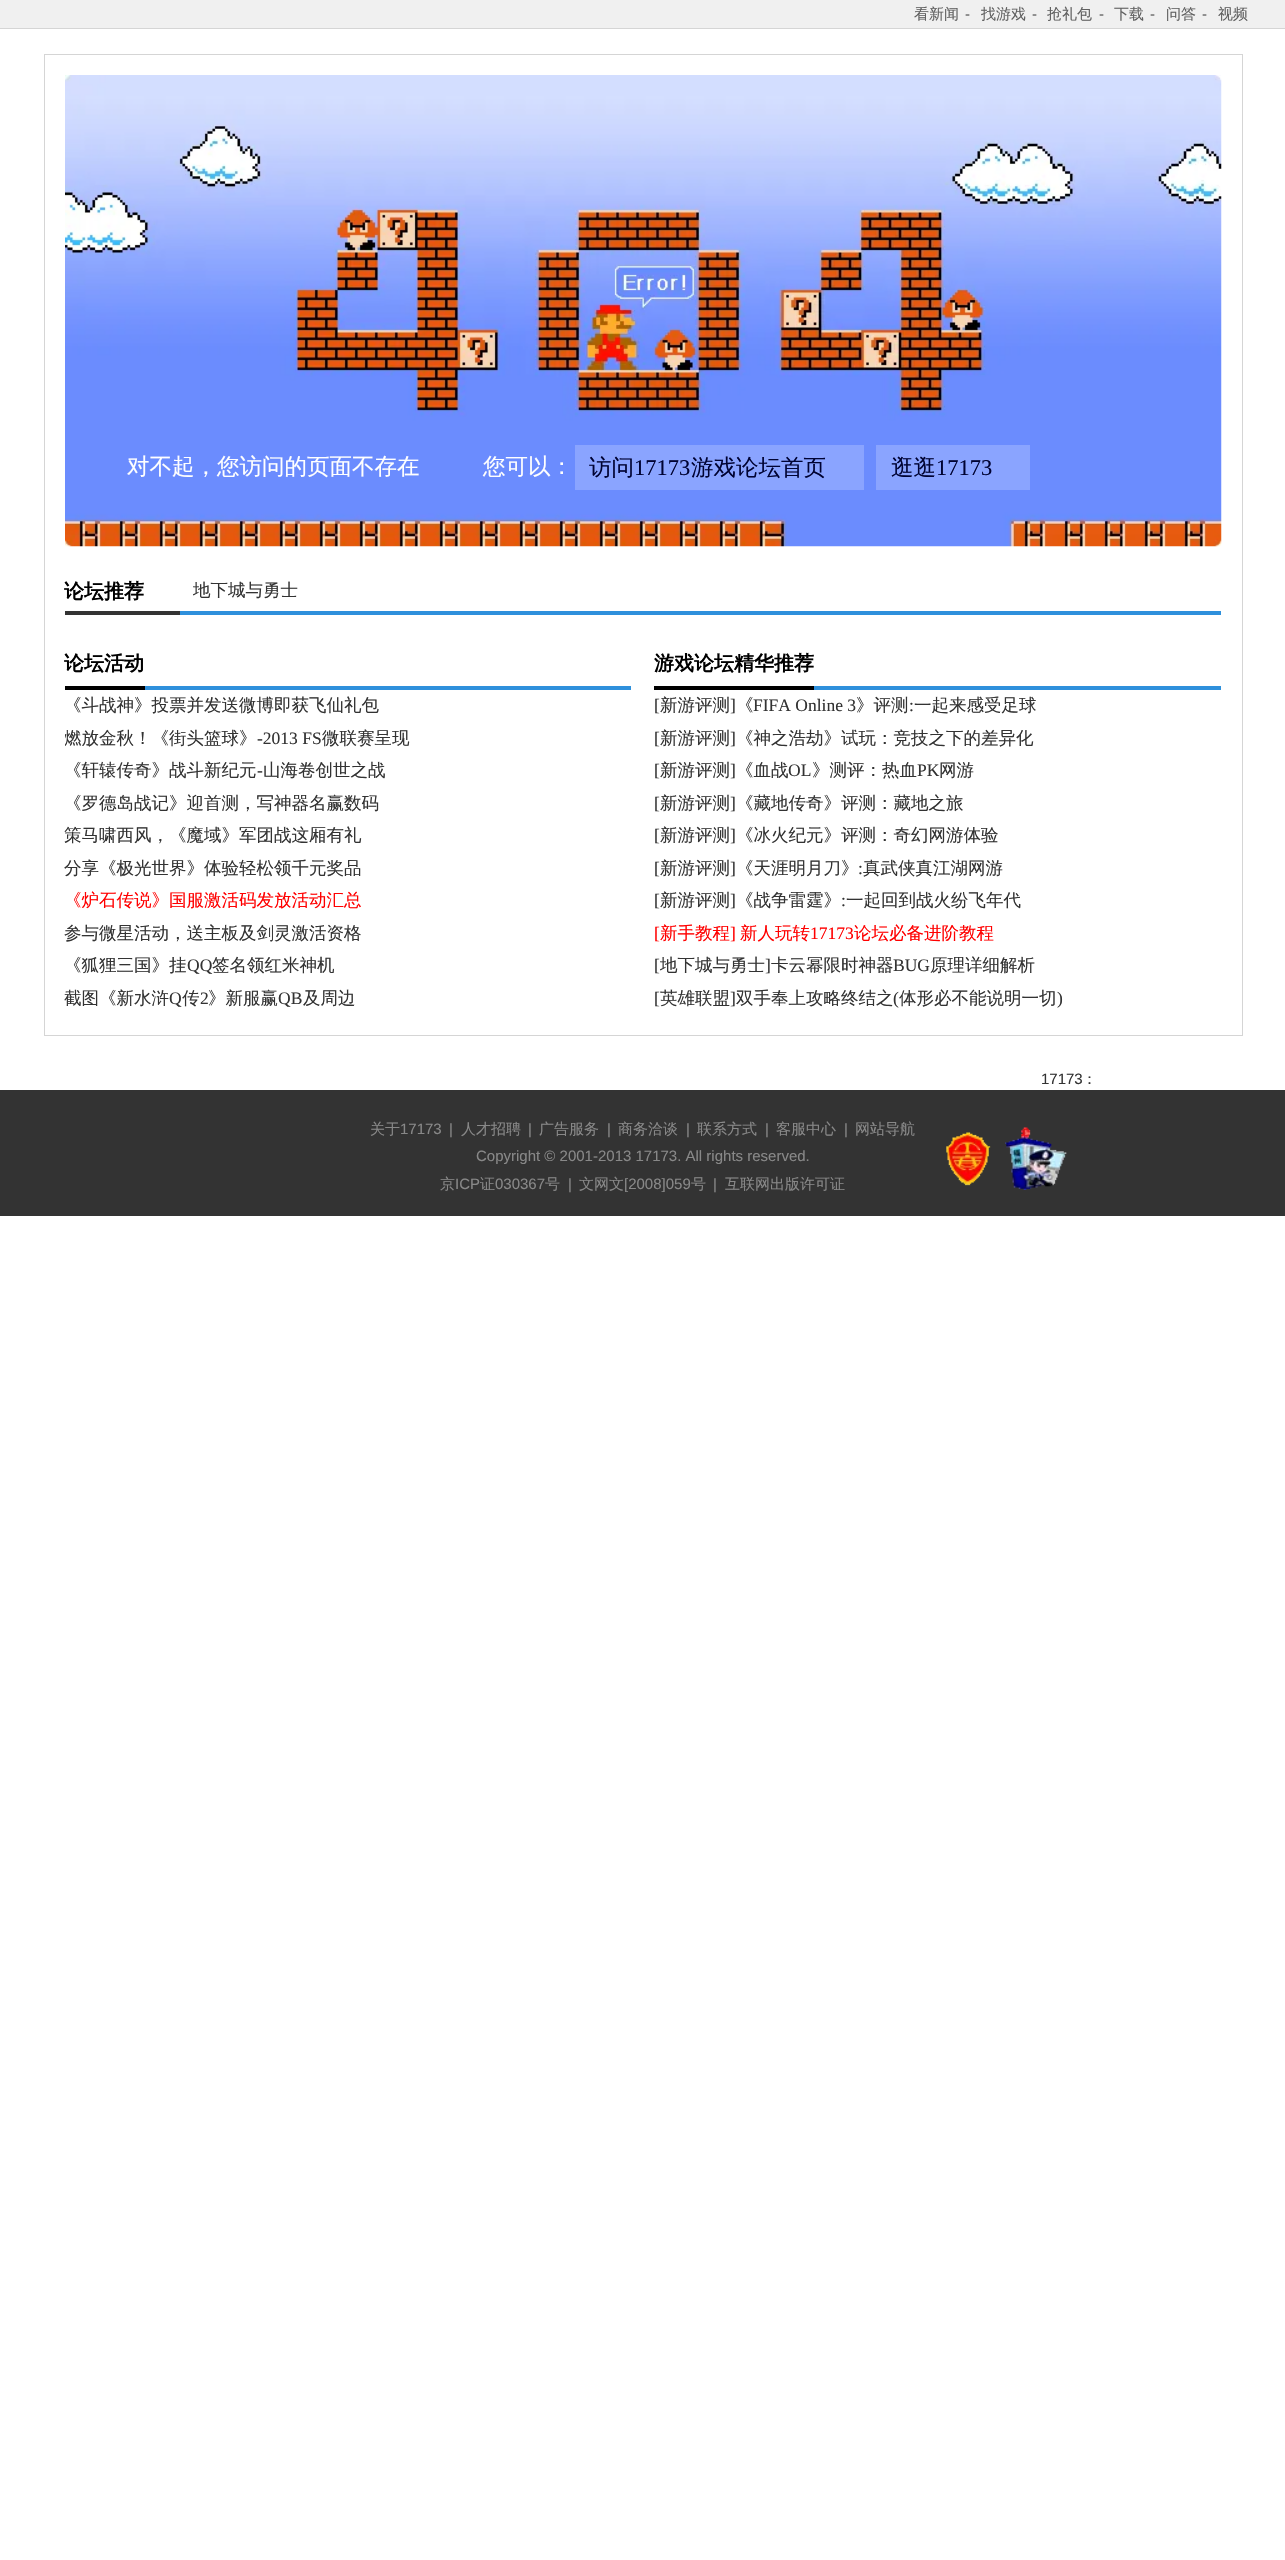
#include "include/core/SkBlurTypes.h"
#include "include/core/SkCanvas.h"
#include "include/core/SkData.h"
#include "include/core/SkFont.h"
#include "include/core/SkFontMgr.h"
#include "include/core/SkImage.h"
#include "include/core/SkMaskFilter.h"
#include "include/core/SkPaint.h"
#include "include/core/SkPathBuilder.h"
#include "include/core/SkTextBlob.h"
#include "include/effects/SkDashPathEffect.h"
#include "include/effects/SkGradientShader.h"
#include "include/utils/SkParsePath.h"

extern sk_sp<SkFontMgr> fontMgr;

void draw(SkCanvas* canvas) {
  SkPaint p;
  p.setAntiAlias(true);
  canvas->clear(SK_ColorWHITE);
  p.setColor(SkColorSetRGB(240, 240, 240));
  canvas->drawRect(SkRect::MakeLTRB(0, 0, 1285, 28), p);
  p.setColor(SkColorSetRGB(213, 213, 213));
  canvas->drawRect(SkRect::MakeLTRB(0, 28, 1285, 29), p);
  p.setStyle(SkPaint::kStroke_Style);
  p.setStrokeWidth(1);
  canvas->drawRect(SkRect::MakeLTRB(44.5f, 54.5f, 1242.5f, 1035.5f), p);
  canvas->drawImageRect(SkImages::DeferredFromEncodedData(SkData::MakeFromFileName("images/1.png")), SkRect::MakeLTRB(65, 75, 1222, 547), SkSamplingOptions());
  p.setStyle(SkPaint::kFill_Style);
  p.setColor(SkColorSetRGB(138, 164, 255));
  canvas->drawRect(SkRect::MakeLTRB(575, 445, 864, 490), p);
  canvas->drawRect(SkRect::MakeLTRB(876, 445, 1030, 490), p);
  p.setColor(SkColorSetRGB(51, 51, 51));
  canvas->drawRect(SkRect::MakeLTRB(65, 611, 180, 615), p);
  p.setColor(SkColorSetRGB(46, 144, 220));
  canvas->drawRect(SkRect::MakeLTRB(180, 611, 1221, 615), p);
  canvas->drawRect(SkRect::MakeLTRB(145, 686, 631, 690), p);
  p.setColor(SK_ColorBLACK);
  canvas->drawRect(SkRect::MakeLTRB(65, 686, 145, 690), p);
  p.setColor(SkColorSetRGB(46, 144, 220));
  canvas->drawRect(SkRect::MakeLTRB(814, 686, 1221, 690), p);
  p.setColor(SK_ColorBLACK);
  canvas->drawRect(SkRect::MakeLTRB(654, 686, 814, 690), p);
  p.setColor(SkColorSetRGB(51, 51, 51));
  canvas->drawRect(SkRect::MakeLTRB(0, 1090, 1285, 1216), p);
  canvas->drawImageRect(SkImages::DeferredFromEncodedData(SkData::MakeFromFileName("images/2.png")), SkRect::MakeLTRB(946, 1132, 991, 1186), SkSamplingOptions());
  canvas->drawImageRect(SkImages::DeferredFromEncodedData(SkData::MakeFromFileName("images/3.png")), SkRect::MakeLTRB(1005, 1127, 1067, 1190), SkSamplingOptions());
  SkFont font1(fontMgr->matchFamilyStyle("WenQuanYi Zen Hei", SkFontStyle(500, SkFontStyle::kNormal_Width, SkFontStyle::kUpright_Slant)), 15);
  font1.setSubpixel(true);
  p.setColor(SkColorSetRGB(96, 96, 96));
  canvas->drawString("看新闻", 914, 19, font1, p);
  SkFont font2(fontMgr->matchFamilyStyle("Liberation Sans", SkFontStyle::Normal()), 15);
  font2.setSubpixel(true);
  canvas->drawString("-", 965, 19, font2, p);
  canvas->drawString("找游戏", 981, 19, font1, p);
  canvas->drawString("-", 1032, 19, font2, p);
  canvas->drawString("抢礼包", 1047, 19, font1, p);
  canvas->drawString("-", 1099, 19, font2, p);
  canvas->drawString("下载", 1114, 19, font1, p);
  canvas->drawString("-", 1150, 19, font2, p);
  canvas->drawString("问答", 1166, 19, font1, p);
  canvas->drawString("-", 1202, 19, font2, p);
  canvas->drawString("视频", 1218, 19, font1, p);
  SkFont font3(fontMgr->matchFamilyStyle("WenQuanYi Zen Hei", SkFontStyle(500, SkFontStyle::kNormal_Width, SkFontStyle::kUpright_Slant)), 22.5f);
  font3.setSubpixel(true);
  p.setColor(SK_ColorWHITE);
  canvas->drawString("对不起，您访问的页面不存在", 127, 474, font3, p);
  canvas->drawString("您可以：", 483, 474, font3, p);
  p.setColor(SkColorSetRGB(0, 3, 51));
  canvas->drawString("访问", 589, 475, font3, p);
  SkFont font4(fontMgr->matchFamilyStyle("Liberation Serif", SkFontStyle::Normal()), 22.5f);
  font4.setSubpixel(true);
  canvas->drawString("17173", 634, 475, font4, p);
  canvas->drawString("游戏论坛首页", 691, 475, font3, p);
  canvas->drawString("逛逛", 891, 475, font3, p);
  canvas->drawString("17173", 936, 475, font4, p);
  SkFont font5(fontMgr->matchFamilyStyle("WenQuanYi Zen Hei", SkFontStyle::Bold()), 20);
  font5.setSubpixel(true);
  p.setColor(SK_ColorBLACK);
  canvas->drawString("论坛推荐", 64, 598, font5, p);
  SkFont font6(fontMgr->matchFamilyStyle("WenQuanYi Zen Hei", SkFontStyle(500, SkFontStyle::kNormal_Width, SkFontStyle::kUpright_Slant)), 17.5f);
  font6.setSubpixel(true);
  p.setColor(SkColorSetRGB(51, 51, 51));
  canvas->drawString("地下城与勇士", 193, 596, font6, p);
  p.setColor(SK_ColorBLACK);
  canvas->drawString("论坛活动", 64, 670, font5, p);
  p.setColor(SkColorSetRGB(51, 51, 51));
  canvas->drawString("《斗战神》投票并发送微博即获飞仙礼包", 64, 711, font6, p);
  canvas->save();
  canvas->clipRect(SkRect::MakeLTRB(65, 723, 631, 755));
  canvas->drawString("燃放金秋！《街头篮球》", 64, 744, font6, p);
  canvas->restore();
  SkFont font7(fontMgr->matchFamilyStyle("Liberation Serif", SkFontStyle::Normal()), 17.5f);
  font7.setSubpixel(true);
  canvas->drawString("-2013 FS", 257, 744, font7, p);
  canvas->drawString("微联赛呈现", 322, 744, font6, p);
  canvas->drawString("《轩辕传奇》战斗新纪元", 64, 776, font6, p);
  canvas->drawString("-", 257, 776, font7, p);
  canvas->drawString("山海卷创世之战", 263, 776, font6, p);
  canvas->drawString("《罗德岛战记》迎首测，写神器名赢数码", 64, 809, font6, p);
  canvas->drawString("策马啸西风，《魔域》军团战这厢有礼", 64, 841, font6, p);
  canvas->drawString("分享《极光世界》体验轻松领千元奖品", 64, 874, font6, p);
  p.setColor(SkColorSetRGB(255, 0, 0));
  canvas->drawString("《炉石传说》国服激活码发放活动汇总", 64, 906, font6, p);
  p.setColor(SkColorSetRGB(51, 51, 51));
  canvas->drawString("参与微星活动，送主板及剑灵激活资格", 64, 939, font6, p);
  canvas->drawString("《狐狸三国》挂", 64, 971, font6, p);
  canvas->drawString("QQ", 187, 971, font7, p);
  canvas->drawString("签名领红米神机", 212, 971, font6, p);
  canvas->drawString("截图《新水浒", 64, 1004, font6, p);
  canvas->drawString("Q", 169, 1004, font7, p);
  canvas->drawString("传", 182, 1004, font6, p);
  canvas->drawString("2", 200, 1004, font7, p);
  canvas->drawString("》新服赢", 208, 1004, font6, p);
  canvas->drawString("QB", 278, 1004, font7, p);
  canvas->drawString("及周边", 303, 1004, font6, p);
  p.setColor(SK_ColorBLACK);
  canvas->drawString("游戏论坛精华推荐", 654, 670, font5, p);
  p.setColor(SkColorSetRGB(51, 51, 51));
  canvas->drawString("[", 654, 711, font7, p);
  canvas->drawString("新游评测", 660, 711, font6, p);
  canvas->drawString("]", 730, 711, font7, p);
  canvas->drawString("《", 736, 711, font6, p);
  canvas->drawString("FIFA Online 3", 753, 711, font7, p);
  canvas->drawString("》评测", 856, 711, font6, p);
  canvas->drawString(":", 909, 711, font7, p);
  canvas->drawString("一起来感受足球", 914, 711, font6, p);
  canvas->drawString("[", 654, 744, font7, p);
  canvas->drawString("新游评测", 660, 744, font6, p);
  canvas->drawString("]", 730, 744, font7, p);
  canvas->drawString("《神之浩劫》试玩：竞技之下的差异化", 736, 744, font6, p);
  canvas->drawString("[", 654, 776, font7, p);
  canvas->drawString("新游评测", 660, 776, font6, p);
  canvas->drawString("]", 730, 776, font7, p);
  canvas->drawString("《血战", 736, 776, font6, p);
  canvas->drawString("OL", 788, 776, font7, p);
  canvas->drawString("》测评：热血", 812, 776, font6, p);
  canvas->drawString("PK", 917, 776, font7, p);
  canvas->drawString("网游", 939, 776, font6, p);
  canvas->drawString("[", 654, 809, font7, p);
  canvas->drawString("新游评测", 660, 809, font6, p);
  canvas->drawString("]", 730, 809, font7, p);
  canvas->drawString("《藏地传奇》评测：藏地之旅", 736, 809, font6, p);
  canvas->drawString("[", 654, 841, font7, p);
  canvas->drawString("新游评测", 660, 841, font6, p);
  canvas->drawString("]", 730, 841, font7, p);
  canvas->drawString("《冰火纪元》评测：奇幻网游体验", 736, 841, font6, p);
  canvas->drawString("[", 654, 874, font7, p);
  canvas->drawString("新游评测", 660, 874, font6, p);
  canvas->drawString("]", 730, 874, font7, p);
  canvas->drawString("《天涯明月刀》", 736, 874, font6, p);
  canvas->drawString(":", 858, 874, font7, p);
  canvas->drawString("真武侠真江湖网游", 863, 874, font6, p);
  canvas->drawString("[", 654, 906, font7, p);
  canvas->drawString("新游评测", 660, 906, font6, p);
  canvas->drawString("]", 730, 906, font7, p);
  canvas->drawString("《战争雷霆》", 736, 906, font6, p);
  canvas->drawString(":", 841, 906, font7, p);
  canvas->drawString("一起回到战火纷飞年代", 846, 906, font6, p);
  p.setColor(SkColorSetRGB(255, 0, 0));
  canvas->drawString("[", 654, 939, font7, p);
  canvas->drawString("新手教程", 660, 939, font6, p);
  canvas->drawString("]", 730, 939, font7, p);
  canvas->drawString("新人玩转", 740, 939, font6, p);
  canvas->drawString("17173", 810, 939, font7, p);
  canvas->drawString("论坛必备进阶教程", 854, 939, font6, p);
  p.setColor(SkColorSetRGB(51, 51, 51));
  canvas->drawString("[", 654, 971, font7, p);
  canvas->drawString("地下城与勇士", 660, 971, font6, p);
  canvas->drawString("]", 765, 971, font7, p);
  canvas->drawString("卡云幂限时神器", 771, 971, font6, p);
  canvas->drawString("BUG", 893, 971, font7, p);
  canvas->drawString("原理详细解析", 930, 971, font6, p);
  canvas->drawString("[", 654, 1004, font7, p);
  canvas->drawString("英雄联盟", 660, 1004, font6, p);
  canvas->drawString("]", 730, 1004, font7, p);
  canvas->drawString("双手奉上攻略终结之", 736, 1004, font6, p);
  canvas->drawString("(", 893, 1004, font7, p);
  canvas->drawString("体形必不能说明一切", 899, 1004, font6, p);
  canvas->drawString(")", 1057, 1004, font7, p);
  canvas->drawString("17173", 1041, 1084, font2, p);
  canvas->drawString("：", 1082, 1084, font1, p);
  p.setColor(SkColorSetRGB(136, 136, 136));
  canvas->drawString("关于", 370, 1134, font1, p);
  canvas->drawString("17173", 400, 1134, font2, p);
  canvas->drawString("|", 449, 1134, font2, p);
  canvas->drawString("人才招聘", 461, 1134, font1, p);
  canvas->drawString("|", 528, 1134, font2, p);
  canvas->drawString("广告服务", 539, 1134, font1, p);
  canvas->drawString("|", 607, 1134, font2, p);
  canvas->drawString("商务洽谈", 618, 1134, font1, p);
  canvas->drawString("|", 686, 1134, font2, p);
  canvas->drawString("联系方式", 697, 1134, font1, p);
  canvas->drawString("|", 765, 1134, font2, p);
  canvas->drawString("客服中心", 776, 1134, font1, p);
  canvas->drawString("|", 844, 1134, font2, p);
  canvas->drawString("网站导航", 855, 1134, font1, p);
  canvas->drawString("Copyright © 2001-2013 17173. All rights reserved.", 476, 1161, font2, p);
  canvas->drawString("京", 440, 1189, font1, p);
  canvas->drawString("ICP", 455, 1189, font2, p);
  canvas->drawString("证", 480, 1189, font1, p);
  canvas->drawString("030367", 495, 1189, font2, p);
  canvas->drawString("号", 545, 1189, font1, p);
  canvas->drawString("|", 568, 1189, font2, p);
  canvas->drawString("文网文", 579, 1189, font1, p);
  canvas->drawString("[2008]059", 624, 1189, font2, p);
  canvas->drawString("号", 691, 1189, font1, p);
  canvas->drawString("|", 713, 1189, font2, p);
  canvas->drawString("互联网出版许可证", 725, 1189, font1, p);
}
